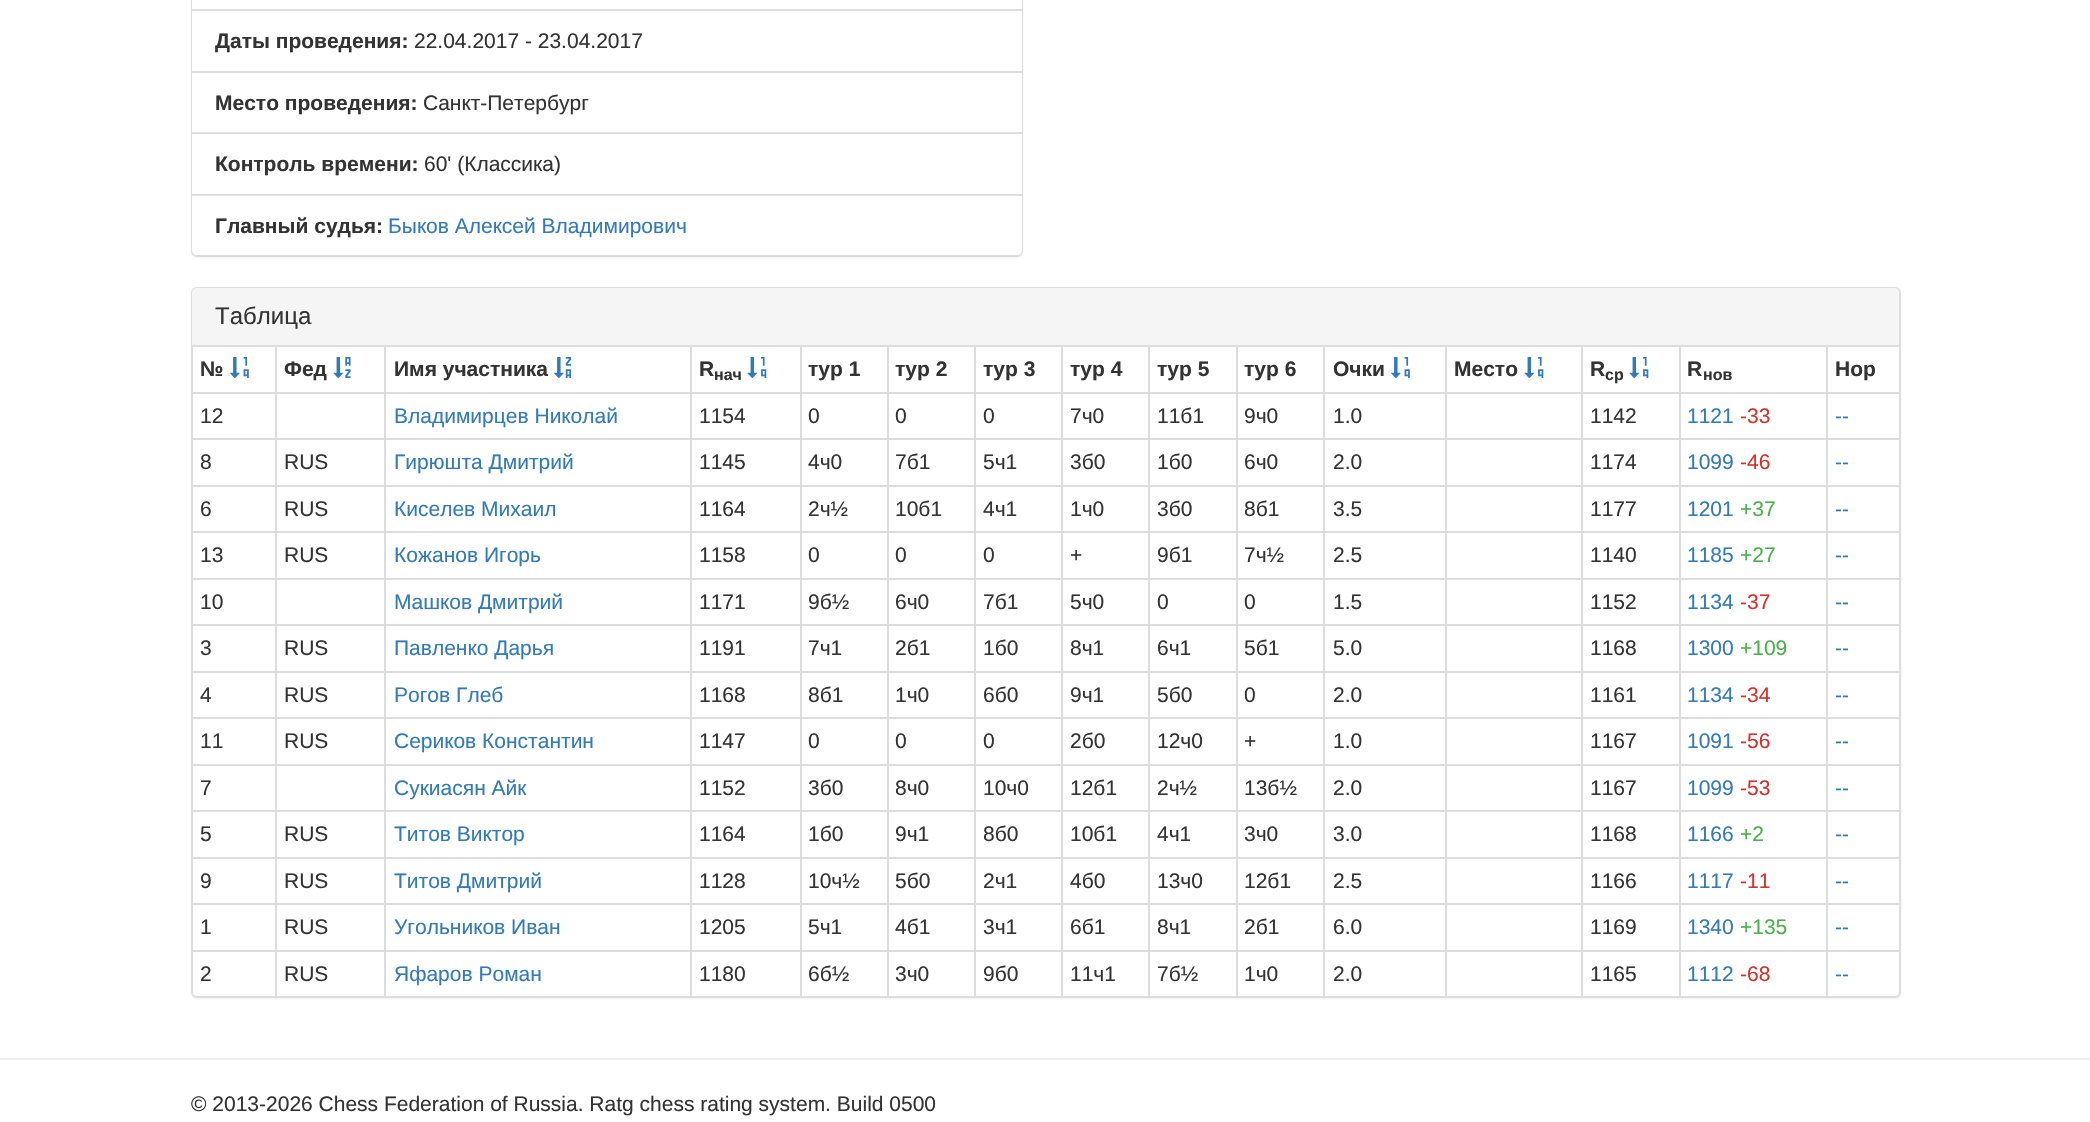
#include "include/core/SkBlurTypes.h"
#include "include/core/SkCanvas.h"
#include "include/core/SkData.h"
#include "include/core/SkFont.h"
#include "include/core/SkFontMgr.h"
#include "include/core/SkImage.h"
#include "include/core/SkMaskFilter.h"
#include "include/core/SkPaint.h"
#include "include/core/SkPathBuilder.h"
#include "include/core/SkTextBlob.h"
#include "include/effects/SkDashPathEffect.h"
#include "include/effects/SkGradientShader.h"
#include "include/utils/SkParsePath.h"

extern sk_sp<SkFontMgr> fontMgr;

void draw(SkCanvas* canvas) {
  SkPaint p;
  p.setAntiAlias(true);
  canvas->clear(SK_ColorWHITE);
  p.setColor(SkColorSetARGB(13, 0, 0, 0));
  p.setMaskFilter(SkMaskFilter::MakeBlur(kNormal_SkBlurStyle, 1));
  canvas->drawRoundRect(SkRect::MakeLTRB(191, -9, 1023, 258), 6, 6, p);
  p.setMaskFilter(nullptr);
  p.setStyle(SkPaint::kStroke_Style);
  p.setStrokeWidth(2);
  p.setColor(SkColorSetRGB(221, 221, 221));
  canvas->drawRoundRect(SkRect::MakeLTRB(192, -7, 1022, 256), 5, 5, p);
  p.setStyle(SkPaint::kFill_Style);
  p.setColor(SK_ColorWHITE);
  canvas->drawRect(SkRect::MakeLTRB(192, 0, 1022, 9), p);
  p.setColor(SkColorSetRGB(221, 221, 221));
  canvas->drawRect(SkRect::MakeLTRB(192, 9, 1022, 11), p);
  p.setColor(SK_ColorWHITE);
  canvas->drawRect(SkRect::MakeLTRB(192, 11, 1022, 71), p);
  canvas->drawRect(SkRect::MakeLTRB(192, 73, 1022, 132), p);
  p.setColor(SkColorSetRGB(221, 221, 221));
  canvas->drawRect(SkRect::MakeLTRB(192, 71, 1022, 73), p);
  canvas->drawRect(SkRect::MakeLTRB(192, 132, 1022, 134), p);
  p.setColor(SK_ColorWHITE);
  canvas->drawRect(SkRect::MakeLTRB(192, 134, 1022, 194), p);
  canvas->drawPath(SkPathBuilder().moveTo(192, 194).lineTo(1022, 194).lineTo(1022, 250).cubicTo(1022, 253, 1020, 255, 1017, 255).lineTo(197, 255).cubicTo(194, 255, 192, 253, 192, 250).close().detach(), p);
  p.setColor(SkColorSetRGB(221, 221, 221));
  canvas->drawRect(SkRect::MakeLTRB(192, 194, 1022, 196), p);
  p.setColor(SkColorSetARGB(13, 0, 0, 0));
  p.setMaskFilter(SkMaskFilter::MakeBlur(kNormal_SkBlurStyle, 1));
  canvas->drawRoundRect(SkRect::MakeLTRB(191, 288, 1901, 999), 6, 6, p);
  p.setMaskFilter(nullptr);
  p.setColor(SK_ColorWHITE);
  canvas->drawRoundRect(SkRect::MakeLTRB(192, 288, 1900, 997), 5, 5, p);
  p.setStyle(SkPaint::kStroke_Style);
  p.setColor(SkColorSetRGB(221, 221, 221));
  canvas->drawRoundRect(SkRect::MakeLTRB(192, 288, 1900, 997), 5, 5, p);
  p.setStyle(SkPaint::kFill_Style);
  p.setColor(SkColorSetRGB(245, 245, 245));
  canvas->drawPath(SkPathBuilder().moveTo(197, 288).lineTo(1894, 288).cubicTo(1897, 288, 1899, 290, 1899, 293).lineTo(1899, 347).lineTo(192, 347).lineTo(192, 293).cubicTo(192, 290, 194, 288, 197, 288).close().detach(), p);
  p.setColor(SkColorSetRGB(221, 221, 221));
  canvas->drawRect(SkRect::MakeLTRB(192, 345, 1899, 347), p);
  canvas->drawImageRect(SkImages::DeferredFromEncodedData(SkData::MakeFromFileName("images/1.png")), SkRect::MakeLTRB(230, 357, 249, 378), SkSamplingOptions());
  canvas->drawRect(SkRect::MakeLTRB(1826, 392, 1901, 394), p);
  canvas->drawRect(SkRect::MakeLTRB(1826, 438, 1901, 440), p);
  canvas->drawRect(SkRect::MakeLTRB(1826, 485, 1901, 487), p);
  canvas->drawRect(SkRect::MakeLTRB(1826, 531, 1901, 533), p);
  canvas->drawRect(SkRect::MakeLTRB(1826, 578, 1901, 580), p);
  canvas->drawRect(SkRect::MakeLTRB(1826, 624, 1901, 626), p);
  canvas->drawRect(SkRect::MakeLTRB(1826, 671, 1901, 673), p);
  canvas->drawRect(SkRect::MakeLTRB(1826, 717, 1901, 719), p);
  canvas->drawRect(SkRect::MakeLTRB(1826, 764, 1901, 766), p);
  canvas->drawRect(SkRect::MakeLTRB(1826, 810, 1901, 812), p);
  canvas->drawRect(SkRect::MakeLTRB(1826, 857, 1901, 859), p);
  canvas->drawRect(SkRect::MakeLTRB(1826, 903, 1901, 905), p);
  canvas->drawRect(SkRect::MakeLTRB(1826, 950, 1901, 952), p);
  canvas->drawRect(SkRect::MakeLTRB(1826, 950, 1828, 996), p);
  canvas->drawRect(SkRect::MakeLTRB(1679, 950, 1827, 952), p);
  canvas->drawRect(SkRect::MakeLTRB(1826, 903, 1828, 951), p);
  canvas->drawRect(SkRect::MakeLTRB(1679, 903, 1827, 905), p);
  canvas->drawRect(SkRect::MakeLTRB(1826, 857, 1828, 905), p);
  canvas->drawRect(SkRect::MakeLTRB(1679, 857, 1827, 859), p);
  canvas->drawRect(SkRect::MakeLTRB(1826, 810, 1828, 858), p);
  canvas->drawRect(SkRect::MakeLTRB(1679, 810, 1827, 812), p);
  canvas->drawRect(SkRect::MakeLTRB(1826, 764, 1828, 812), p);
  canvas->drawRect(SkRect::MakeLTRB(1679, 764, 1827, 766), p);
  canvas->drawRect(SkRect::MakeLTRB(1826, 717, 1828, 765), p);
  canvas->drawRect(SkRect::MakeLTRB(1679, 717, 1827, 719), p);
  canvas->drawRect(SkRect::MakeLTRB(1826, 671, 1828, 719), p);
  canvas->drawRect(SkRect::MakeLTRB(1679, 671, 1827, 673), p);
  canvas->drawRect(SkRect::MakeLTRB(1826, 624, 1828, 672), p);
  canvas->drawRect(SkRect::MakeLTRB(1679, 624, 1827, 626), p);
  canvas->drawRect(SkRect::MakeLTRB(1826, 578, 1828, 626), p);
  canvas->drawRect(SkRect::MakeLTRB(1679, 578, 1827, 580), p);
  canvas->drawRect(SkRect::MakeLTRB(1826, 531, 1828, 579), p);
  canvas->drawRect(SkRect::MakeLTRB(1679, 531, 1827, 533), p);
  canvas->drawRect(SkRect::MakeLTRB(1826, 485, 1828, 533), p);
  canvas->drawRect(SkRect::MakeLTRB(1679, 485, 1827, 487), p);
  canvas->drawRect(SkRect::MakeLTRB(1826, 438, 1828, 486), p);
  canvas->drawRect(SkRect::MakeLTRB(1679, 438, 1827, 440), p);
  canvas->drawRect(SkRect::MakeLTRB(1826, 392, 1828, 440), p);
  canvas->drawRect(SkRect::MakeLTRB(1679, 392, 1827, 394), p);
  canvas->drawRect(SkRect::MakeLTRB(1679, 950, 1681, 996), p);
  canvas->drawRect(SkRect::MakeLTRB(1581, 950, 1680, 952), p);
  canvas->drawRect(SkRect::MakeLTRB(1679, 903, 1681, 951), p);
  canvas->drawRect(SkRect::MakeLTRB(1581, 903, 1680, 905), p);
  canvas->drawRect(SkRect::MakeLTRB(1679, 857, 1681, 905), p);
  canvas->drawRect(SkRect::MakeLTRB(1581, 857, 1680, 859), p);
  canvas->drawRect(SkRect::MakeLTRB(1679, 810, 1681, 858), p);
  canvas->drawRect(SkRect::MakeLTRB(1581, 810, 1680, 812), p);
  canvas->drawRect(SkRect::MakeLTRB(1679, 764, 1681, 812), p);
  canvas->drawRect(SkRect::MakeLTRB(1581, 764, 1680, 766), p);
  canvas->drawRect(SkRect::MakeLTRB(1679, 717, 1681, 765), p);
  canvas->drawRect(SkRect::MakeLTRB(1581, 717, 1680, 719), p);
  canvas->drawRect(SkRect::MakeLTRB(1679, 671, 1681, 719), p);
  canvas->drawRect(SkRect::MakeLTRB(1581, 671, 1680, 673), p);
  canvas->drawRect(SkRect::MakeLTRB(1679, 624, 1681, 672), p);
  canvas->drawRect(SkRect::MakeLTRB(1581, 624, 1680, 626), p);
  canvas->drawRect(SkRect::MakeLTRB(1679, 578, 1681, 626), p);
  canvas->drawRect(SkRect::MakeLTRB(1581, 578, 1680, 580), p);
  canvas->drawRect(SkRect::MakeLTRB(1679, 531, 1681, 579), p);
  canvas->drawRect(SkRect::MakeLTRB(1581, 531, 1680, 533), p);
  canvas->drawRect(SkRect::MakeLTRB(1679, 485, 1681, 533), p);
  canvas->drawRect(SkRect::MakeLTRB(1581, 485, 1680, 487), p);
  canvas->drawRect(SkRect::MakeLTRB(1679, 438, 1681, 486), p);
  canvas->drawRect(SkRect::MakeLTRB(1581, 438, 1680, 440), p);
  canvas->drawRect(SkRect::MakeLTRB(1679, 392, 1681, 440), p);
  canvas->drawRect(SkRect::MakeLTRB(1581, 392, 1680, 394), p);
  canvas->drawRect(SkRect::MakeLTRB(1581, 950, 1583, 996), p);
  canvas->drawRect(SkRect::MakeLTRB(1445, 950, 1583, 952), p);
  canvas->drawRect(SkRect::MakeLTRB(1581, 903, 1583, 951), p);
  canvas->drawRect(SkRect::MakeLTRB(1445, 903, 1583, 905), p);
  canvas->drawRect(SkRect::MakeLTRB(1581, 857, 1583, 905), p);
  canvas->drawRect(SkRect::MakeLTRB(1445, 857, 1583, 859), p);
  canvas->drawRect(SkRect::MakeLTRB(1581, 810, 1583, 858), p);
  canvas->drawRect(SkRect::MakeLTRB(1445, 810, 1583, 812), p);
  canvas->drawRect(SkRect::MakeLTRB(1581, 764, 1583, 812), p);
  canvas->drawRect(SkRect::MakeLTRB(1445, 764, 1583, 766), p);
  canvas->drawRect(SkRect::MakeLTRB(1581, 717, 1583, 765), p);
  canvas->drawRect(SkRect::MakeLTRB(1445, 717, 1583, 719), p);
  canvas->drawRect(SkRect::MakeLTRB(1581, 671, 1583, 719), p);
  canvas->drawRect(SkRect::MakeLTRB(1445, 671, 1583, 673), p);
  canvas->drawRect(SkRect::MakeLTRB(1581, 624, 1583, 672), p);
  canvas->drawRect(SkRect::MakeLTRB(1445, 624, 1583, 626), p);
  canvas->drawRect(SkRect::MakeLTRB(1581, 578, 1583, 626), p);
  canvas->drawRect(SkRect::MakeLTRB(1445, 578, 1583, 580), p);
  canvas->drawRect(SkRect::MakeLTRB(1581, 531, 1583, 579), p);
  canvas->drawRect(SkRect::MakeLTRB(1445, 531, 1583, 533), p);
  canvas->drawRect(SkRect::MakeLTRB(1581, 485, 1583, 533), p);
  canvas->drawRect(SkRect::MakeLTRB(1445, 485, 1583, 487), p);
  canvas->drawRect(SkRect::MakeLTRB(1581, 438, 1583, 486), p);
  canvas->drawRect(SkRect::MakeLTRB(1445, 438, 1583, 440), p);
  canvas->drawRect(SkRect::MakeLTRB(1581, 392, 1583, 440), p);
  canvas->drawRect(SkRect::MakeLTRB(1445, 392, 1583, 394), p);
  canvas->drawRect(SkRect::MakeLTRB(1445, 950, 1447, 996), p);
  canvas->drawRect(SkRect::MakeLTRB(1323, 950, 1446, 952), p);
  canvas->drawRect(SkRect::MakeLTRB(1445, 903, 1447, 951), p);
  canvas->drawRect(SkRect::MakeLTRB(1323, 903, 1446, 905), p);
  canvas->drawRect(SkRect::MakeLTRB(1445, 857, 1447, 905), p);
  canvas->drawRect(SkRect::MakeLTRB(1323, 857, 1446, 859), p);
  canvas->drawRect(SkRect::MakeLTRB(1445, 810, 1447, 858), p);
  canvas->drawRect(SkRect::MakeLTRB(1323, 810, 1446, 812), p);
  canvas->drawRect(SkRect::MakeLTRB(1445, 764, 1447, 812), p);
  canvas->drawRect(SkRect::MakeLTRB(1323, 764, 1446, 766), p);
  canvas->drawRect(SkRect::MakeLTRB(1445, 717, 1447, 765), p);
  canvas->drawRect(SkRect::MakeLTRB(1323, 717, 1446, 719), p);
  canvas->drawRect(SkRect::MakeLTRB(1445, 671, 1447, 719), p);
  canvas->drawRect(SkRect::MakeLTRB(1323, 671, 1446, 673), p);
  canvas->drawRect(SkRect::MakeLTRB(1445, 624, 1447, 672), p);
  canvas->drawRect(SkRect::MakeLTRB(1323, 624, 1446, 626), p);
  canvas->drawRect(SkRect::MakeLTRB(1445, 578, 1447, 626), p);
  canvas->drawRect(SkRect::MakeLTRB(1323, 578, 1446, 580), p);
  canvas->drawRect(SkRect::MakeLTRB(1445, 531, 1447, 579), p);
  canvas->drawRect(SkRect::MakeLTRB(1323, 531, 1446, 533), p);
  canvas->drawRect(SkRect::MakeLTRB(1445, 485, 1447, 533), p);
  canvas->drawRect(SkRect::MakeLTRB(1323, 485, 1446, 487), p);
  canvas->drawRect(SkRect::MakeLTRB(1445, 438, 1447, 486), p);
  canvas->drawRect(SkRect::MakeLTRB(1323, 438, 1446, 440), p);
  canvas->drawRect(SkRect::MakeLTRB(1445, 392, 1447, 440), p);
  canvas->drawRect(SkRect::MakeLTRB(1323, 392, 1446, 394), p);
  canvas->drawRect(SkRect::MakeLTRB(1323, 950, 1325, 996), p);
  canvas->drawRect(SkRect::MakeLTRB(1236, 950, 1325, 952), p);
  canvas->drawRect(SkRect::MakeLTRB(1323, 903, 1325, 951), p);
  canvas->drawRect(SkRect::MakeLTRB(1236, 903, 1325, 905), p);
  canvas->drawRect(SkRect::MakeLTRB(1323, 857, 1325, 905), p);
  canvas->drawRect(SkRect::MakeLTRB(1236, 857, 1325, 859), p);
  canvas->drawRect(SkRect::MakeLTRB(1323, 810, 1325, 858), p);
  canvas->drawRect(SkRect::MakeLTRB(1236, 810, 1325, 812), p);
  canvas->drawRect(SkRect::MakeLTRB(1323, 764, 1325, 812), p);
  canvas->drawRect(SkRect::MakeLTRB(1236, 764, 1325, 766), p);
  canvas->drawRect(SkRect::MakeLTRB(1323, 717, 1325, 765), p);
  canvas->drawRect(SkRect::MakeLTRB(1236, 717, 1325, 719), p);
  canvas->drawRect(SkRect::MakeLTRB(1323, 671, 1325, 719), p);
  canvas->drawRect(SkRect::MakeLTRB(1236, 671, 1325, 673), p);
  canvas->drawRect(SkRect::MakeLTRB(1323, 624, 1325, 672), p);
  canvas->drawRect(SkRect::MakeLTRB(1236, 624, 1325, 626), p);
  canvas->drawRect(SkRect::MakeLTRB(1323, 578, 1325, 626), p);
  canvas->drawRect(SkRect::MakeLTRB(1236, 578, 1325, 580), p);
  canvas->drawRect(SkRect::MakeLTRB(1323, 531, 1325, 579), p);
  canvas->drawRect(SkRect::MakeLTRB(1236, 531, 1325, 533), p);
  canvas->drawRect(SkRect::MakeLTRB(1323, 485, 1325, 533), p);
  canvas->drawRect(SkRect::MakeLTRB(1236, 485, 1325, 487), p);
  canvas->drawRect(SkRect::MakeLTRB(1323, 438, 1325, 486), p);
  canvas->drawRect(SkRect::MakeLTRB(1236, 438, 1325, 440), p);
  canvas->drawRect(SkRect::MakeLTRB(1323, 392, 1325, 440), p);
  canvas->drawRect(SkRect::MakeLTRB(1236, 392, 1325, 394), p);
  canvas->drawRect(SkRect::MakeLTRB(1236, 950, 1238, 996), p);
  canvas->drawRect(SkRect::MakeLTRB(1148, 950, 1238, 952), p);
  canvas->drawRect(SkRect::MakeLTRB(1236, 903, 1238, 951), p);
  canvas->drawRect(SkRect::MakeLTRB(1148, 903, 1238, 905), p);
  canvas->drawRect(SkRect::MakeLTRB(1236, 857, 1238, 905), p);
  canvas->drawRect(SkRect::MakeLTRB(1148, 857, 1238, 859), p);
  canvas->drawRect(SkRect::MakeLTRB(1236, 810, 1238, 858), p);
  canvas->drawRect(SkRect::MakeLTRB(1148, 810, 1238, 812), p);
  canvas->drawRect(SkRect::MakeLTRB(1236, 764, 1238, 812), p);
  canvas->drawRect(SkRect::MakeLTRB(1148, 764, 1238, 766), p);
  canvas->drawRect(SkRect::MakeLTRB(1236, 717, 1238, 765), p);
  canvas->drawRect(SkRect::MakeLTRB(1148, 717, 1238, 719), p);
  canvas->drawRect(SkRect::MakeLTRB(1236, 671, 1238, 719), p);
  canvas->drawRect(SkRect::MakeLTRB(1148, 671, 1238, 673), p);
  canvas->drawRect(SkRect::MakeLTRB(1236, 624, 1238, 672), p);
  canvas->drawRect(SkRect::MakeLTRB(1148, 624, 1238, 626), p);
  canvas->drawRect(SkRect::MakeLTRB(1236, 578, 1238, 626), p);
  canvas->drawRect(SkRect::MakeLTRB(1148, 578, 1238, 580), p);
  canvas->drawRect(SkRect::MakeLTRB(1236, 531, 1238, 579), p);
  canvas->drawRect(SkRect::MakeLTRB(1148, 531, 1238, 533), p);
  canvas->drawRect(SkRect::MakeLTRB(1236, 485, 1238, 533), p);
  canvas->drawRect(SkRect::MakeLTRB(1148, 485, 1238, 487), p);
  canvas->drawRect(SkRect::MakeLTRB(1236, 438, 1238, 486), p);
  canvas->drawRect(SkRect::MakeLTRB(1148, 438, 1238, 440), p);
  canvas->drawRect(SkRect::MakeLTRB(1236, 392, 1238, 440), p);
  canvas->drawRect(SkRect::MakeLTRB(1148, 392, 1238, 394), p);
  canvas->drawRect(SkRect::MakeLTRB(1148, 950, 1150, 996), p);
  canvas->drawRect(SkRect::MakeLTRB(1061, 950, 1149, 952), p);
  canvas->drawRect(SkRect::MakeLTRB(1148, 903, 1150, 951), p);
  canvas->drawRect(SkRect::MakeLTRB(1061, 903, 1149, 905), p);
  canvas->drawRect(SkRect::MakeLTRB(1148, 857, 1150, 905), p);
  canvas->drawRect(SkRect::MakeLTRB(1061, 857, 1149, 859), p);
  canvas->drawRect(SkRect::MakeLTRB(1148, 810, 1150, 858), p);
  canvas->drawRect(SkRect::MakeLTRB(1061, 810, 1149, 812), p);
  canvas->drawRect(SkRect::MakeLTRB(1148, 764, 1150, 812), p);
  canvas->drawRect(SkRect::MakeLTRB(1061, 764, 1149, 766), p);
  canvas->drawRect(SkRect::MakeLTRB(1148, 717, 1150, 765), p);
  canvas->drawRect(SkRect::MakeLTRB(1061, 717, 1149, 719), p);
  canvas->drawRect(SkRect::MakeLTRB(1148, 671, 1150, 719), p);
  canvas->drawRect(SkRect::MakeLTRB(1061, 671, 1149, 673), p);
  canvas->drawRect(SkRect::MakeLTRB(1148, 624, 1150, 672), p);
  canvas->drawRect(SkRect::MakeLTRB(1061, 624, 1149, 626), p);
  canvas->drawRect(SkRect::MakeLTRB(1148, 578, 1150, 626), p);
  canvas->drawRect(SkRect::MakeLTRB(1061, 578, 1149, 580), p);
  canvas->drawRect(SkRect::MakeLTRB(1148, 531, 1150, 579), p);
  canvas->drawRect(SkRect::MakeLTRB(1061, 531, 1149, 533), p);
  canvas->drawRect(SkRect::MakeLTRB(1148, 485, 1150, 533), p);
  canvas->drawRect(SkRect::MakeLTRB(1061, 485, 1149, 487), p);
  canvas->drawRect(SkRect::MakeLTRB(1148, 438, 1150, 486), p);
  canvas->drawRect(SkRect::MakeLTRB(1061, 438, 1149, 440), p);
  canvas->drawRect(SkRect::MakeLTRB(1148, 392, 1150, 440), p);
  canvas->drawRect(SkRect::MakeLTRB(1061, 392, 1149, 394), p);
  canvas->drawRect(SkRect::MakeLTRB(1061, 950, 1063, 996), p);
  canvas->drawRect(SkRect::MakeLTRB(974, 950, 1062, 952), p);
  canvas->drawRect(SkRect::MakeLTRB(1061, 903, 1063, 951), p);
  canvas->drawRect(SkRect::MakeLTRB(974, 903, 1062, 905), p);
  canvas->drawRect(SkRect::MakeLTRB(1061, 857, 1063, 905), p);
  canvas->drawRect(SkRect::MakeLTRB(974, 857, 1062, 859), p);
  canvas->drawRect(SkRect::MakeLTRB(1061, 810, 1063, 858), p);
  canvas->drawRect(SkRect::MakeLTRB(974, 810, 1062, 812), p);
  canvas->drawRect(SkRect::MakeLTRB(1061, 764, 1063, 812), p);
  canvas->drawRect(SkRect::MakeLTRB(974, 764, 1062, 766), p);
  canvas->drawRect(SkRect::MakeLTRB(1061, 717, 1063, 765), p);
  canvas->drawRect(SkRect::MakeLTRB(974, 717, 1062, 719), p);
  canvas->drawRect(SkRect::MakeLTRB(1061, 671, 1063, 719), p);
  canvas->drawRect(SkRect::MakeLTRB(974, 671, 1062, 673), p);
  canvas->drawRect(SkRect::MakeLTRB(1061, 624, 1063, 672), p);
  canvas->drawRect(SkRect::MakeLTRB(974, 624, 1062, 626), p);
  canvas->drawRect(SkRect::MakeLTRB(1061, 578, 1063, 626), p);
  canvas->drawRect(SkRect::MakeLTRB(974, 578, 1062, 580), p);
  canvas->drawRect(SkRect::MakeLTRB(1061, 531, 1063, 579), p);
  canvas->drawRect(SkRect::MakeLTRB(974, 531, 1062, 533), p);
  canvas->drawRect(SkRect::MakeLTRB(1061, 485, 1063, 533), p);
  canvas->drawRect(SkRect::MakeLTRB(974, 485, 1062, 487), p);
  canvas->drawRect(SkRect::MakeLTRB(1061, 438, 1063, 486), p);
  canvas->drawRect(SkRect::MakeLTRB(974, 438, 1062, 440), p);
  canvas->drawRect(SkRect::MakeLTRB(1061, 392, 1063, 440), p);
  canvas->drawRect(SkRect::MakeLTRB(974, 392, 1062, 394), p);
  canvas->drawRect(SkRect::MakeLTRB(974, 950, 976, 996), p);
  canvas->drawRect(SkRect::MakeLTRB(887, 950, 975, 952), p);
  canvas->drawRect(SkRect::MakeLTRB(974, 903, 976, 951), p);
  canvas->drawRect(SkRect::MakeLTRB(887, 903, 975, 905), p);
  canvas->drawRect(SkRect::MakeLTRB(974, 857, 976, 905), p);
  canvas->drawRect(SkRect::MakeLTRB(887, 857, 975, 859), p);
  canvas->drawRect(SkRect::MakeLTRB(974, 810, 976, 858), p);
  canvas->drawRect(SkRect::MakeLTRB(887, 810, 975, 812), p);
  canvas->drawRect(SkRect::MakeLTRB(974, 764, 976, 812), p);
  canvas->drawRect(SkRect::MakeLTRB(887, 764, 975, 766), p);
  canvas->drawRect(SkRect::MakeLTRB(974, 717, 976, 765), p);
  canvas->drawRect(SkRect::MakeLTRB(887, 717, 975, 719), p);
  canvas->drawRect(SkRect::MakeLTRB(974, 671, 976, 719), p);
  canvas->drawRect(SkRect::MakeLTRB(887, 671, 975, 673), p);
  canvas->drawRect(SkRect::MakeLTRB(974, 624, 976, 672), p);
  canvas->drawRect(SkRect::MakeLTRB(887, 624, 975, 626), p);
  canvas->drawRect(SkRect::MakeLTRB(974, 578, 976, 626), p);
  canvas->drawRect(SkRect::MakeLTRB(887, 578, 975, 580), p);
  canvas->drawRect(SkRect::MakeLTRB(974, 531, 976, 579), p);
  canvas->drawRect(SkRect::MakeLTRB(887, 531, 975, 533), p);
  canvas->drawRect(SkRect::MakeLTRB(974, 485, 976, 533), p);
  canvas->drawRect(SkRect::MakeLTRB(887, 485, 975, 487), p);
  canvas->drawRect(SkRect::MakeLTRB(974, 438, 976, 486), p);
  canvas->drawRect(SkRect::MakeLTRB(887, 438, 975, 440), p);
  canvas->drawRect(SkRect::MakeLTRB(974, 392, 976, 440), p);
  canvas->drawRect(SkRect::MakeLTRB(887, 392, 975, 394), p);
  canvas->drawRect(SkRect::MakeLTRB(887, 950, 889, 996), p);
  canvas->drawRect(SkRect::MakeLTRB(800, 950, 888, 952), p);
  canvas->drawRect(SkRect::MakeLTRB(887, 903, 889, 951), p);
  canvas->drawRect(SkRect::MakeLTRB(800, 903, 888, 905), p);
  canvas->drawRect(SkRect::MakeLTRB(887, 857, 889, 905), p);
  canvas->drawRect(SkRect::MakeLTRB(800, 857, 888, 859), p);
  canvas->drawRect(SkRect::MakeLTRB(887, 810, 889, 858), p);
  canvas->drawRect(SkRect::MakeLTRB(800, 810, 888, 812), p);
  canvas->drawRect(SkRect::MakeLTRB(887, 764, 889, 812), p);
  canvas->drawRect(SkRect::MakeLTRB(800, 764, 888, 766), p);
  canvas->drawRect(SkRect::MakeLTRB(887, 717, 889, 765), p);
  canvas->drawRect(SkRect::MakeLTRB(800, 717, 888, 719), p);
  canvas->drawRect(SkRect::MakeLTRB(887, 671, 889, 719), p);
  canvas->drawRect(SkRect::MakeLTRB(800, 671, 888, 673), p);
  canvas->drawRect(SkRect::MakeLTRB(887, 624, 889, 672), p);
  canvas->drawRect(SkRect::MakeLTRB(800, 624, 888, 626), p);
  canvas->drawRect(SkRect::MakeLTRB(887, 578, 889, 626), p);
  canvas->drawRect(SkRect::MakeLTRB(800, 578, 888, 580), p);
  canvas->drawRect(SkRect::MakeLTRB(887, 531, 889, 579), p);
  canvas->drawRect(SkRect::MakeLTRB(800, 531, 888, 533), p);
  canvas->drawRect(SkRect::MakeLTRB(887, 485, 889, 533), p);
  canvas->drawRect(SkRect::MakeLTRB(800, 485, 888, 487), p);
  canvas->drawRect(SkRect::MakeLTRB(887, 438, 889, 486), p);
  canvas->drawRect(SkRect::MakeLTRB(800, 438, 888, 440), p);
  canvas->drawRect(SkRect::MakeLTRB(887, 392, 889, 440), p);
  canvas->drawRect(SkRect::MakeLTRB(800, 392, 888, 394), p);
  canvas->drawRect(SkRect::MakeLTRB(800, 950, 802, 996), p);
  canvas->drawRect(SkRect::MakeLTRB(690, 950, 801, 952), p);
  canvas->drawRect(SkRect::MakeLTRB(800, 903, 802, 951), p);
  canvas->drawRect(SkRect::MakeLTRB(690, 903, 801, 905), p);
  canvas->drawRect(SkRect::MakeLTRB(800, 857, 802, 905), p);
  canvas->drawRect(SkRect::MakeLTRB(690, 857, 801, 859), p);
  canvas->drawRect(SkRect::MakeLTRB(800, 810, 802, 858), p);
  canvas->drawRect(SkRect::MakeLTRB(690, 810, 801, 812), p);
  canvas->drawRect(SkRect::MakeLTRB(800, 764, 802, 812), p);
  canvas->drawRect(SkRect::MakeLTRB(690, 764, 801, 766), p);
  canvas->drawRect(SkRect::MakeLTRB(800, 717, 802, 765), p);
  canvas->drawRect(SkRect::MakeLTRB(690, 717, 801, 719), p);
  canvas->drawRect(SkRect::MakeLTRB(800, 671, 802, 719), p);
  canvas->drawRect(SkRect::MakeLTRB(690, 671, 801, 673), p);
  canvas->drawRect(SkRect::MakeLTRB(800, 624, 802, 672), p);
  canvas->drawRect(SkRect::MakeLTRB(690, 624, 801, 626), p);
  canvas->drawRect(SkRect::MakeLTRB(800, 578, 802, 626), p);
  canvas->drawRect(SkRect::MakeLTRB(690, 578, 801, 580), p);
  canvas->drawRect(SkRect::MakeLTRB(800, 531, 802, 579), p);
  canvas->drawRect(SkRect::MakeLTRB(690, 531, 801, 533), p);
  canvas->drawRect(SkRect::MakeLTRB(800, 485, 802, 533), p);
  canvas->drawRect(SkRect::MakeLTRB(690, 485, 801, 487), p);
  canvas->drawRect(SkRect::MakeLTRB(800, 438, 802, 486), p);
  canvas->drawRect(SkRect::MakeLTRB(690, 438, 801, 440), p);
  canvas->drawRect(SkRect::MakeLTRB(800, 392, 802, 440), p);
  canvas->drawRect(SkRect::MakeLTRB(690, 392, 801, 394), p);
  canvas->drawRect(SkRect::MakeLTRB(690, 950, 692, 996), p);
  canvas->drawRect(SkRect::MakeLTRB(384, 950, 692, 952), p);
  canvas->drawRect(SkRect::MakeLTRB(690, 903, 692, 951), p);
  canvas->drawRect(SkRect::MakeLTRB(384, 903, 692, 905), p);
  canvas->drawRect(SkRect::MakeLTRB(690, 857, 692, 905), p);
  canvas->drawRect(SkRect::MakeLTRB(384, 857, 692, 859), p);
  canvas->drawRect(SkRect::MakeLTRB(690, 810, 692, 858), p);
  canvas->drawRect(SkRect::MakeLTRB(384, 810, 692, 812), p);
  canvas->drawRect(SkRect::MakeLTRB(690, 764, 692, 812), p);
  canvas->drawRect(SkRect::MakeLTRB(384, 764, 692, 766), p);
  canvas->drawRect(SkRect::MakeLTRB(690, 717, 692, 765), p);
  canvas->drawRect(SkRect::MakeLTRB(384, 717, 692, 719), p);
  canvas->drawRect(SkRect::MakeLTRB(690, 671, 692, 719), p);
  canvas->drawRect(SkRect::MakeLTRB(384, 671, 692, 673), p);
  canvas->drawRect(SkRect::MakeLTRB(690, 624, 692, 672), p);
  canvas->drawRect(SkRect::MakeLTRB(384, 624, 692, 626), p);
  canvas->drawRect(SkRect::MakeLTRB(690, 578, 692, 626), p);
  canvas->drawRect(SkRect::MakeLTRB(384, 578, 692, 580), p);
  canvas->drawRect(SkRect::MakeLTRB(690, 531, 692, 579), p);
  canvas->drawRect(SkRect::MakeLTRB(384, 531, 692, 533), p);
  canvas->drawRect(SkRect::MakeLTRB(690, 485, 692, 533), p);
  canvas->drawRect(SkRect::MakeLTRB(384, 485, 692, 487), p);
  canvas->drawRect(SkRect::MakeLTRB(690, 438, 692, 486), p);
  canvas->drawRect(SkRect::MakeLTRB(384, 438, 692, 440), p);
  canvas->drawRect(SkRect::MakeLTRB(690, 392, 692, 440), p);
  canvas->drawRect(SkRect::MakeLTRB(384, 392, 692, 394), p);
  canvas->drawRect(SkRect::MakeLTRB(384, 950, 386, 996), p);
  canvas->drawRect(SkRect::MakeLTRB(275, 950, 386, 952), p);
  canvas->drawRect(SkRect::MakeLTRB(384, 903, 386, 951), p);
  canvas->drawRect(SkRect::MakeLTRB(275, 903, 386, 905), p);
  canvas->drawRect(SkRect::MakeLTRB(384, 857, 386, 905), p);
  canvas->drawRect(SkRect::MakeLTRB(275, 857, 386, 859), p);
  canvas->drawRect(SkRect::MakeLTRB(384, 810, 386, 858), p);
  canvas->drawRect(SkRect::MakeLTRB(275, 810, 386, 812), p);
  canvas->drawRect(SkRect::MakeLTRB(384, 764, 386, 812), p);
  canvas->drawRect(SkRect::MakeLTRB(275, 764, 386, 766), p);
  canvas->drawRect(SkRect::MakeLTRB(384, 717, 386, 765), p);
  canvas->drawRect(SkRect::MakeLTRB(275, 717, 386, 719), p);
  canvas->drawRect(SkRect::MakeLTRB(384, 671, 386, 719), p);
  canvas->drawRect(SkRect::MakeLTRB(275, 671, 386, 673), p);
  canvas->drawRect(SkRect::MakeLTRB(384, 624, 386, 672), p);
  canvas->drawRect(SkRect::MakeLTRB(275, 624, 386, 626), p);
  canvas->drawRect(SkRect::MakeLTRB(384, 578, 386, 626), p);
  canvas->drawRect(SkRect::MakeLTRB(275, 578, 386, 580), p);
  canvas->drawRect(SkRect::MakeLTRB(384, 531, 386, 579), p);
  canvas->drawRect(SkRect::MakeLTRB(275, 531, 386, 533), p);
  canvas->drawRect(SkRect::MakeLTRB(384, 485, 386, 533), p);
  canvas->drawRect(SkRect::MakeLTRB(275, 485, 386, 487), p);
  canvas->drawRect(SkRect::MakeLTRB(384, 438, 386, 486), p);
  canvas->drawRect(SkRect::MakeLTRB(275, 438, 386, 440), p);
  canvas->drawRect(SkRect::MakeLTRB(384, 392, 386, 440), p);
  canvas->drawRect(SkRect::MakeLTRB(275, 392, 386, 394), p);
  canvas->drawRect(SkRect::MakeLTRB(275, 950, 277, 996), p);
  canvas->drawRect(SkRect::MakeLTRB(192, 950, 276, 952), p);
  canvas->drawRect(SkRect::MakeLTRB(275, 903, 277, 951), p);
  canvas->drawRect(SkRect::MakeLTRB(192, 903, 276, 905), p);
  canvas->drawRect(SkRect::MakeLTRB(275, 857, 277, 905), p);
  canvas->drawRect(SkRect::MakeLTRB(192, 857, 276, 859), p);
  canvas->drawRect(SkRect::MakeLTRB(275, 810, 277, 858), p);
  canvas->drawRect(SkRect::MakeLTRB(192, 810, 276, 812), p);
  canvas->drawRect(SkRect::MakeLTRB(275, 764, 277, 812), p);
  canvas->drawRect(SkRect::MakeLTRB(192, 764, 276, 766), p);
  canvas->drawRect(SkRect::MakeLTRB(275, 717, 277, 765), p);
  canvas->drawRect(SkRect::MakeLTRB(192, 717, 276, 719), p);
  canvas->drawRect(SkRect::MakeLTRB(275, 671, 277, 719), p);
  canvas->drawRect(SkRect::MakeLTRB(192, 671, 276, 673), p);
  canvas->drawRect(SkRect::MakeLTRB(275, 624, 277, 672), p);
  canvas->drawRect(SkRect::MakeLTRB(192, 624, 276, 626), p);
  canvas->drawRect(SkRect::MakeLTRB(275, 578, 277, 626), p);
  canvas->drawRect(SkRect::MakeLTRB(192, 578, 276, 580), p);
  canvas->drawRect(SkRect::MakeLTRB(275, 531, 277, 579), p);
  canvas->drawRect(SkRect::MakeLTRB(192, 531, 276, 533), p);
  canvas->drawRect(SkRect::MakeLTRB(275, 485, 277, 533), p);
  canvas->drawRect(SkRect::MakeLTRB(192, 485, 276, 487), p);
  canvas->drawRect(SkRect::MakeLTRB(275, 438, 277, 486), p);
  canvas->drawRect(SkRect::MakeLTRB(192, 438, 276, 440), p);
  canvas->drawRect(SkRect::MakeLTRB(275, 392, 277, 440), p);
  canvas->drawRect(SkRect::MakeLTRB(192, 392, 276, 394), p);
  canvas->drawRect(SkRect::MakeLTRB(275, 345, 277, 393), p);
  canvas->drawImageRect(SkImages::DeferredFromEncodedData(SkData::MakeFromFileName("images/2.png")), SkRect::MakeLTRB(333, 357, 351, 378), SkSamplingOptions());
  canvas->drawRect(SkRect::MakeLTRB(384, 345, 386, 393), p);
  canvas->drawImageRect(SkImages::DeferredFromEncodedData(SkData::MakeFromFileName("images/3.png")), SkRect::MakeLTRB(554, 357, 572, 378), SkSamplingOptions());
  canvas->drawRect(SkRect::MakeLTRB(690, 345, 692, 393), p);
  canvas->drawImageRect(SkImages::DeferredFromEncodedData(SkData::MakeFromFileName("images/4.png")), SkRect::MakeLTRB(747, 357, 767, 378), SkSamplingOptions());
  canvas->drawRect(SkRect::MakeLTRB(800, 345, 802, 393), p);
  canvas->drawRect(SkRect::MakeLTRB(887, 345, 889, 393), p);
  canvas->drawRect(SkRect::MakeLTRB(974, 345, 976, 393), p);
  canvas->drawRect(SkRect::MakeLTRB(1061, 345, 1063, 393), p);
  canvas->drawRect(SkRect::MakeLTRB(1148, 345, 1150, 393), p);
  canvas->drawRect(SkRect::MakeLTRB(1236, 345, 1238, 393), p);
  canvas->drawRect(SkRect::MakeLTRB(1323, 345, 1325, 393), p);
  canvas->drawImageRect(SkImages::DeferredFromEncodedData(SkData::MakeFromFileName("images/1.png")), SkRect::MakeLTRB(1391, 357, 1410, 378), SkSamplingOptions());
  canvas->drawRect(SkRect::MakeLTRB(1445, 345, 1447, 393), p);
  canvas->drawImageRect(SkImages::DeferredFromEncodedData(SkData::MakeFromFileName("images/4.png")), SkRect::MakeLTRB(1524, 357, 1544, 378), SkSamplingOptions());
  canvas->drawRect(SkRect::MakeLTRB(1581, 345, 1583, 393), p);
  canvas->drawImageRect(SkImages::DeferredFromEncodedData(SkData::MakeFromFileName("images/4.png")), SkRect::MakeLTRB(1629, 357, 1649, 378), SkSamplingOptions());
  canvas->drawRect(SkRect::MakeLTRB(1679, 345, 1681, 393), p);
  canvas->drawRect(SkRect::MakeLTRB(1826, 345, 1828, 393), p);
  p.setColor(SkColorSetRGB(238, 238, 238));
  canvas->drawRect(SkRect::MakeLTRB(0, 1058, 2090, 1060), p);
  SkFont font1(fontMgr->matchFamilyStyle("Liberation Sans", SkFontStyle::Bold()), 21);
  font1.setSubpixel(true);
  p.setColor(SkColorSetRGB(51, 51, 51));
  canvas->drawString("Даты проведения:", 215, 48, font1, p);
  SkFont font2(fontMgr->matchFamilyStyle("Liberation Sans", SkFontStyle::Normal()), 21);
  font2.setSubpixel(true);
  canvas->drawString("22.04.2017 - 23.04.2017", 414, 48, font2, p);
  canvas->drawString("Место проведения:", 215, 110, font1, p);
  canvas->drawString("Санкт-Петербург", 423, 110, font2, p);
  canvas->drawString("Контроль времени:", 215, 171, font1, p);
  canvas->drawString("60' (Классика)", 424, 171, font2, p);
  canvas->drawString("Главный судья:", 215, 233, font1, p);
  p.setColor(SkColorSetRGB(51, 122, 183));
  canvas->drawString("Быков Алексей Владимирович", 388, 233, font2, p);
  SkFont font3(fontMgr->matchFamilyStyle("Liberation Sans", SkFontStyle::Normal()), 24);
  font3.setSubpixel(true);
  p.setColor(SkColorSetRGB(51, 51, 51));
  canvas->drawString("Таблица", 215, 324, font3, p);
  canvas->drawString("№", 200, 376, font1, p);
  canvas->drawString("Фед", 284, 376, font1, p);
  canvas->drawString("Имя участника", 394, 376, font1, p);
  canvas->drawString("R", 699, 376, font1, p);
  SkFont font4(fontMgr->matchFamilyStyle("Liberation Sans", SkFontStyle::Bold()), 16);
  font4.setSubpixel(true);
  canvas->drawString("нач", 714, 380, font4, p);
  canvas->drawString("тур 1", 808, 376, font1, p);
  canvas->drawString("тур 2", 895, 376, font1, p);
  canvas->drawString("тур 3", 983, 376, font1, p);
  canvas->drawString("тур 4", 1070, 376, font1, p);
  canvas->drawString("тур 5", 1157, 376, font1, p);
  canvas->drawString("тур 6", 1244, 376, font1, p);
  canvas->drawString("Очки", 1333, 376, font1, p);
  canvas->drawString("Место", 1454, 376, font1, p);
  canvas->drawString("R", 1590, 376, font1, p);
  canvas->drawString("ср", 1605, 380, font4, p);
  canvas->drawString("R", 1687, 376, font1, p);
  canvas->drawString("нов", 1703, 380, font4, p);
  canvas->drawString("Нор", 1835, 376, font1, p);
  canvas->drawString("12", 200, 423, font2, p);
  p.setColor(SkColorSetRGB(51, 122, 183));
  canvas->drawString("Владимирцев Николай", 394, 423, font2, p);
  p.setColor(SkColorSetRGB(51, 51, 51));
  canvas->drawString("1154", 699, 423, font2, p);
  canvas->drawString("0", 808, 423, font2, p);
  canvas->drawString("0", 895, 423, font2, p);
  canvas->drawString("0", 983, 423, font2, p);
  canvas->drawString("7ч0", 1070, 423, font2, p);
  canvas->drawString("11б1", 1157, 423, font2, p);
  canvas->drawString("9ч0", 1244, 423, font2, p);
  canvas->drawString("1.0", 1333, 423, font2, p);
  canvas->drawString("1142", 1590, 423, font2, p);
  p.setColor(SkColorSetRGB(51, 122, 183));
  canvas->drawString("1121", 1687, 423, font2, p);
  p.setColor(SkColorSetRGB(210, 50, 45));
  canvas->drawString("-33", 1740, 423, font2, p);
  p.setColor(SkColorSetRGB(51, 122, 183));
  canvas->drawString("--", 1835, 423, font2, p);
  p.setColor(SkColorSetRGB(51, 51, 51));
  canvas->drawString("8", 200, 469, font2, p);
  canvas->drawString("RUS", 284, 469, font2, p);
  p.setColor(SkColorSetRGB(51, 122, 183));
  canvas->drawString("Гирюшта Дмитрий", 394, 469, font2, p);
  p.setColor(SkColorSetRGB(51, 51, 51));
  canvas->drawString("1145", 699, 469, font2, p);
  canvas->drawString("4ч0", 808, 469, font2, p);
  canvas->drawString("7б1", 895, 469, font2, p);
  canvas->drawString("5ч1", 983, 469, font2, p);
  canvas->drawString("3б0", 1070, 469, font2, p);
  canvas->drawString("1б0", 1157, 469, font2, p);
  canvas->drawString("6ч0", 1244, 469, font2, p);
  canvas->drawString("2.0", 1333, 469, font2, p);
  canvas->drawString("1174", 1590, 469, font2, p);
  p.setColor(SkColorSetRGB(51, 122, 183));
  canvas->drawString("1099", 1687, 469, font2, p);
  p.setColor(SkColorSetRGB(210, 50, 45));
  canvas->drawString("-46", 1740, 469, font2, p);
  p.setColor(SkColorSetRGB(51, 122, 183));
  canvas->drawString("--", 1835, 469, font2, p);
  p.setColor(SkColorSetRGB(51, 51, 51));
  canvas->drawString("6", 200, 516, font2, p);
  canvas->drawString("RUS", 284, 516, font2, p);
  p.setColor(SkColorSetRGB(51, 122, 183));
  canvas->drawString("Киселев Михаил", 394, 516, font2, p);
  p.setColor(SkColorSetRGB(51, 51, 51));
  canvas->drawString("1164", 699, 516, font2, p);
  canvas->drawString("2ч½", 808, 516, font2, p);
  canvas->drawString("10б1", 895, 516, font2, p);
  canvas->drawString("4ч1", 983, 516, font2, p);
  canvas->drawString("1ч0", 1070, 516, font2, p);
  canvas->drawString("3б0", 1157, 516, font2, p);
  canvas->drawString("8б1", 1244, 516, font2, p);
  canvas->drawString("3.5", 1333, 516, font2, p);
  canvas->drawString("1177", 1590, 516, font2, p);
  p.setColor(SkColorSetRGB(51, 122, 183));
  canvas->drawString("1201", 1687, 516, font2, p);
  p.setColor(SkColorSetRGB(76, 174, 76));
  canvas->drawString("+37", 1740, 516, font2, p);
  p.setColor(SkColorSetRGB(51, 122, 183));
  canvas->drawString("--", 1835, 516, font2, p);
  p.setColor(SkColorSetRGB(51, 51, 51));
  canvas->drawString("13", 200, 562, font2, p);
  canvas->drawString("RUS", 284, 562, font2, p);
  p.setColor(SkColorSetRGB(51, 122, 183));
  canvas->drawString("Кожанов Игорь", 394, 562, font2, p);
  p.setColor(SkColorSetRGB(51, 51, 51));
  canvas->drawString("1158", 699, 562, font2, p);
  canvas->drawString("0", 808, 562, font2, p);
  canvas->drawString("0", 895, 562, font2, p);
  canvas->drawString("0", 983, 562, font2, p);
  canvas->drawString("+", 1070, 562, font2, p);
  canvas->drawString("9б1", 1157, 562, font2, p);
  canvas->drawString("7ч½", 1244, 562, font2, p);
  canvas->drawString("2.5", 1333, 562, font2, p);
  canvas->drawString("1140", 1590, 562, font2, p);
  p.setColor(SkColorSetRGB(51, 122, 183));
  canvas->drawString("1185", 1687, 562, font2, p);
  p.setColor(SkColorSetRGB(76, 174, 76));
  canvas->drawString("+27", 1740, 562, font2, p);
  p.setColor(SkColorSetRGB(51, 122, 183));
  canvas->drawString("--", 1835, 562, font2, p);
  p.setColor(SkColorSetRGB(51, 51, 51));
  canvas->drawString("10", 200, 609, font2, p);
  p.setColor(SkColorSetRGB(51, 122, 183));
  canvas->drawString("Машков Дмитрий", 394, 609, font2, p);
  p.setColor(SkColorSetRGB(51, 51, 51));
  canvas->drawString("1171", 699, 609, font2, p);
  canvas->drawString("9б½", 808, 609, font2, p);
  canvas->drawString("6ч0", 895, 609, font2, p);
  canvas->drawString("7б1", 983, 609, font2, p);
  canvas->drawString("5ч0", 1070, 609, font2, p);
  canvas->drawString("0", 1157, 609, font2, p);
  canvas->drawString("0", 1244, 609, font2, p);
  canvas->drawString("1.5", 1333, 609, font2, p);
  canvas->drawString("1152", 1590, 609, font2, p);
  p.setColor(SkColorSetRGB(51, 122, 183));
  canvas->drawString("1134", 1687, 609, font2, p);
  p.setColor(SkColorSetRGB(210, 50, 45));
  canvas->drawString("-37", 1740, 609, font2, p);
  p.setColor(SkColorSetRGB(51, 122, 183));
  canvas->drawString("--", 1835, 609, font2, p);
  p.setColor(SkColorSetRGB(51, 51, 51));
  canvas->drawString("3", 200, 655, font2, p);
  canvas->drawString("RUS", 284, 655, font2, p);
  p.setColor(SkColorSetRGB(51, 122, 183));
  canvas->drawString("Павленко Дарья", 394, 655, font2, p);
  p.setColor(SkColorSetRGB(51, 51, 51));
  canvas->drawString("1191", 699, 655, font2, p);
  canvas->drawString("7ч1", 808, 655, font2, p);
  canvas->drawString("2б1", 895, 655, font2, p);
  canvas->drawString("1б0", 983, 655, font2, p);
  canvas->drawString("8ч1", 1070, 655, font2, p);
  canvas->drawString("6ч1", 1157, 655, font2, p);
  canvas->drawString("5б1", 1244, 655, font2, p);
  canvas->drawString("5.0", 1333, 655, font2, p);
  canvas->drawString("1168", 1590, 655, font2, p);
  p.setColor(SkColorSetRGB(51, 122, 183));
  canvas->drawString("1300", 1687, 655, font2, p);
  p.setColor(SkColorSetRGB(76, 174, 76));
  canvas->drawString("+109", 1740, 655, font2, p);
  p.setColor(SkColorSetRGB(51, 122, 183));
  canvas->drawString("--", 1835, 655, font2, p);
  p.setColor(SkColorSetRGB(51, 51, 51));
  canvas->drawString("4", 200, 702, font2, p);
  canvas->drawString("RUS", 284, 702, font2, p);
  p.setColor(SkColorSetRGB(51, 122, 183));
  canvas->drawString("Рогов Глеб", 394, 702, font2, p);
  p.setColor(SkColorSetRGB(51, 51, 51));
  canvas->drawString("1168", 699, 702, font2, p);
  canvas->drawString("8б1", 808, 702, font2, p);
  canvas->drawString("1ч0", 895, 702, font2, p);
  canvas->drawString("6б0", 983, 702, font2, p);
  canvas->drawString("9ч1", 1070, 702, font2, p);
  canvas->drawString("5б0", 1157, 702, font2, p);
  canvas->drawString("0", 1244, 702, font2, p);
  canvas->drawString("2.0", 1333, 702, font2, p);
  canvas->drawString("1161", 1590, 702, font2, p);
  p.setColor(SkColorSetRGB(51, 122, 183));
  canvas->drawString("1134", 1687, 702, font2, p);
  p.setColor(SkColorSetRGB(210, 50, 45));
  canvas->drawString("-34", 1740, 702, font2, p);
  p.setColor(SkColorSetRGB(51, 122, 183));
  canvas->drawString("--", 1835, 702, font2, p);
  p.setColor(SkColorSetRGB(51, 51, 51));
  canvas->drawString("11", 200, 748, font2, p);
  canvas->drawString("RUS", 284, 748, font2, p);
  p.setColor(SkColorSetRGB(51, 122, 183));
  canvas->drawString("Сериков Константин", 394, 748, font2, p);
  p.setColor(SkColorSetRGB(51, 51, 51));
  canvas->drawString("1147", 699, 748, font2, p);
  canvas->drawString("0", 808, 748, font2, p);
  canvas->drawString("0", 895, 748, font2, p);
  canvas->drawString("0", 983, 748, font2, p);
  canvas->drawString("2б0", 1070, 748, font2, p);
  canvas->drawString("12ч0", 1157, 748, font2, p);
  canvas->drawString("+", 1244, 748, font2, p);
  canvas->drawString("1.0", 1333, 748, font2, p);
  canvas->drawString("1167", 1590, 748, font2, p);
  p.setColor(SkColorSetRGB(51, 122, 183));
  canvas->drawString("1091", 1687, 748, font2, p);
  p.setColor(SkColorSetRGB(210, 50, 45));
  canvas->drawString("-56", 1740, 748, font2, p);
  p.setColor(SkColorSetRGB(51, 122, 183));
  canvas->drawString("--", 1835, 748, font2, p);
  p.setColor(SkColorSetRGB(51, 51, 51));
  canvas->drawString("7", 200, 795, font2, p);
  p.setColor(SkColorSetRGB(51, 122, 183));
  canvas->drawString("Сукиасян Айк", 394, 795, font2, p);
  p.setColor(SkColorSetRGB(51, 51, 51));
  canvas->drawString("1152", 699, 795, font2, p);
  canvas->drawString("3б0", 808, 795, font2, p);
  canvas->drawString("8ч0", 895, 795, font2, p);
  canvas->drawString("10ч0", 983, 795, font2, p);
  canvas->drawString("12б1", 1070, 795, font2, p);
  canvas->drawString("2ч½", 1157, 795, font2, p);
  canvas->drawString("13б½", 1244, 795, font2, p);
  canvas->drawString("2.0", 1333, 795, font2, p);
  canvas->drawString("1167", 1590, 795, font2, p);
  p.setColor(SkColorSetRGB(51, 122, 183));
  canvas->drawString("1099", 1687, 795, font2, p);
  p.setColor(SkColorSetRGB(210, 50, 45));
  canvas->drawString("-53", 1740, 795, font2, p);
  p.setColor(SkColorSetRGB(51, 122, 183));
  canvas->drawString("--", 1835, 795, font2, p);
  p.setColor(SkColorSetRGB(51, 51, 51));
  canvas->drawString("5", 200, 841, font2, p);
  canvas->drawString("RUS", 284, 841, font2, p);
  p.setColor(SkColorSetRGB(51, 122, 183));
  canvas->drawString("Титов Виктор", 394, 841, font2, p);
  p.setColor(SkColorSetRGB(51, 51, 51));
  canvas->drawString("1164", 699, 841, font2, p);
  canvas->drawString("1б0", 808, 841, font2, p);
  canvas->drawString("9ч1", 895, 841, font2, p);
  canvas->drawString("8б0", 983, 841, font2, p);
  canvas->drawString("10б1", 1070, 841, font2, p);
  canvas->drawString("4ч1", 1157, 841, font2, p);
  canvas->drawString("3ч0", 1244, 841, font2, p);
  canvas->drawString("3.0", 1333, 841, font2, p);
  canvas->drawString("1168", 1590, 841, font2, p);
  p.setColor(SkColorSetRGB(51, 122, 183));
  canvas->drawString("1166", 1687, 841, font2, p);
  p.setColor(SkColorSetRGB(76, 174, 76));
  canvas->drawString("+2", 1740, 841, font2, p);
  p.setColor(SkColorSetRGB(51, 122, 183));
  canvas->drawString("--", 1835, 841, font2, p);
  p.setColor(SkColorSetRGB(51, 51, 51));
  canvas->drawString("9", 200, 888, font2, p);
  canvas->drawString("RUS", 284, 888, font2, p);
  p.setColor(SkColorSetRGB(51, 122, 183));
  canvas->drawString("Титов Дмитрий", 394, 888, font2, p);
  p.setColor(SkColorSetRGB(51, 51, 51));
  canvas->drawString("1128", 699, 888, font2, p);
  canvas->drawString("10ч½", 808, 888, font2, p);
  canvas->drawString("5б0", 895, 888, font2, p);
  canvas->drawString("2ч1", 983, 888, font2, p);
  canvas->drawString("4б0", 1070, 888, font2, p);
  canvas->drawString("13ч0", 1157, 888, font2, p);
  canvas->drawString("12б1", 1244, 888, font2, p);
  canvas->drawString("2.5", 1333, 888, font2, p);
  canvas->drawString("1166", 1590, 888, font2, p);
  p.setColor(SkColorSetRGB(51, 122, 183));
  canvas->drawString("1117", 1687, 888, font2, p);
  p.setColor(SkColorSetRGB(210, 50, 45));
  canvas->drawString("-11", 1740, 888, font2, p);
  p.setColor(SkColorSetRGB(51, 122, 183));
  canvas->drawString("--", 1835, 888, font2, p);
  p.setColor(SkColorSetRGB(51, 51, 51));
  canvas->drawString("1", 200, 934, font2, p);
  canvas->drawString("RUS", 284, 934, font2, p);
  p.setColor(SkColorSetRGB(51, 122, 183));
  canvas->drawString("Угольников Иван", 394, 934, font2, p);
  p.setColor(SkColorSetRGB(51, 51, 51));
  canvas->drawString("1205", 699, 934, font2, p);
  canvas->drawString("5ч1", 808, 934, font2, p);
  canvas->drawString("4б1", 895, 934, font2, p);
  canvas->drawString("3ч1", 983, 934, font2, p);
  canvas->drawString("6б1", 1070, 934, font2, p);
  canvas->drawString("8ч1", 1157, 934, font2, p);
  canvas->drawString("2б1", 1244, 934, font2, p);
  canvas->drawString("6.0", 1333, 934, font2, p);
  canvas->drawString("1169", 1590, 934, font2, p);
  p.setColor(SkColorSetRGB(51, 122, 183));
  canvas->drawString("1340", 1687, 934, font2, p);
  p.setColor(SkColorSetRGB(76, 174, 76));
  canvas->drawString("+135", 1740, 934, font2, p);
  p.setColor(SkColorSetRGB(51, 122, 183));
  canvas->drawString("--", 1835, 934, font2, p);
  p.setColor(SkColorSetRGB(51, 51, 51));
  canvas->drawString("2", 200, 981, font2, p);
  canvas->drawString("RUS", 284, 981, font2, p);
  p.setColor(SkColorSetRGB(51, 122, 183));
  canvas->drawString("Яфаров Роман", 394, 981, font2, p);
  p.setColor(SkColorSetRGB(51, 51, 51));
  canvas->drawString("1180", 699, 981, font2, p);
  canvas->drawString("6б½", 808, 981, font2, p);
  canvas->drawString("3ч0", 895, 981, font2, p);
  canvas->drawString("9б0", 983, 981, font2, p);
  canvas->drawString("11ч1", 1070, 981, font2, p);
  canvas->drawString("7б½", 1157, 981, font2, p);
  canvas->drawString("1ч0", 1244, 981, font2, p);
  canvas->drawString("2.0", 1333, 981, font2, p);
  canvas->drawString("1165", 1590, 981, font2, p);
  p.setColor(SkColorSetRGB(51, 122, 183));
  canvas->drawString("1112", 1687, 981, font2, p);
  p.setColor(SkColorSetRGB(210, 50, 45));
  canvas->drawString("-68", 1740, 981, font2, p);
  p.setColor(SkColorSetRGB(51, 122, 183));
  canvas->drawString("--", 1835, 981, font2, p);
  p.setColor(SkColorSetRGB(51, 51, 51));
  canvas->drawString("© 2013-2026 Chess Federation of Russia. Ratg chess rating system. Build 0500", 191, 1111, font2, p);
}
